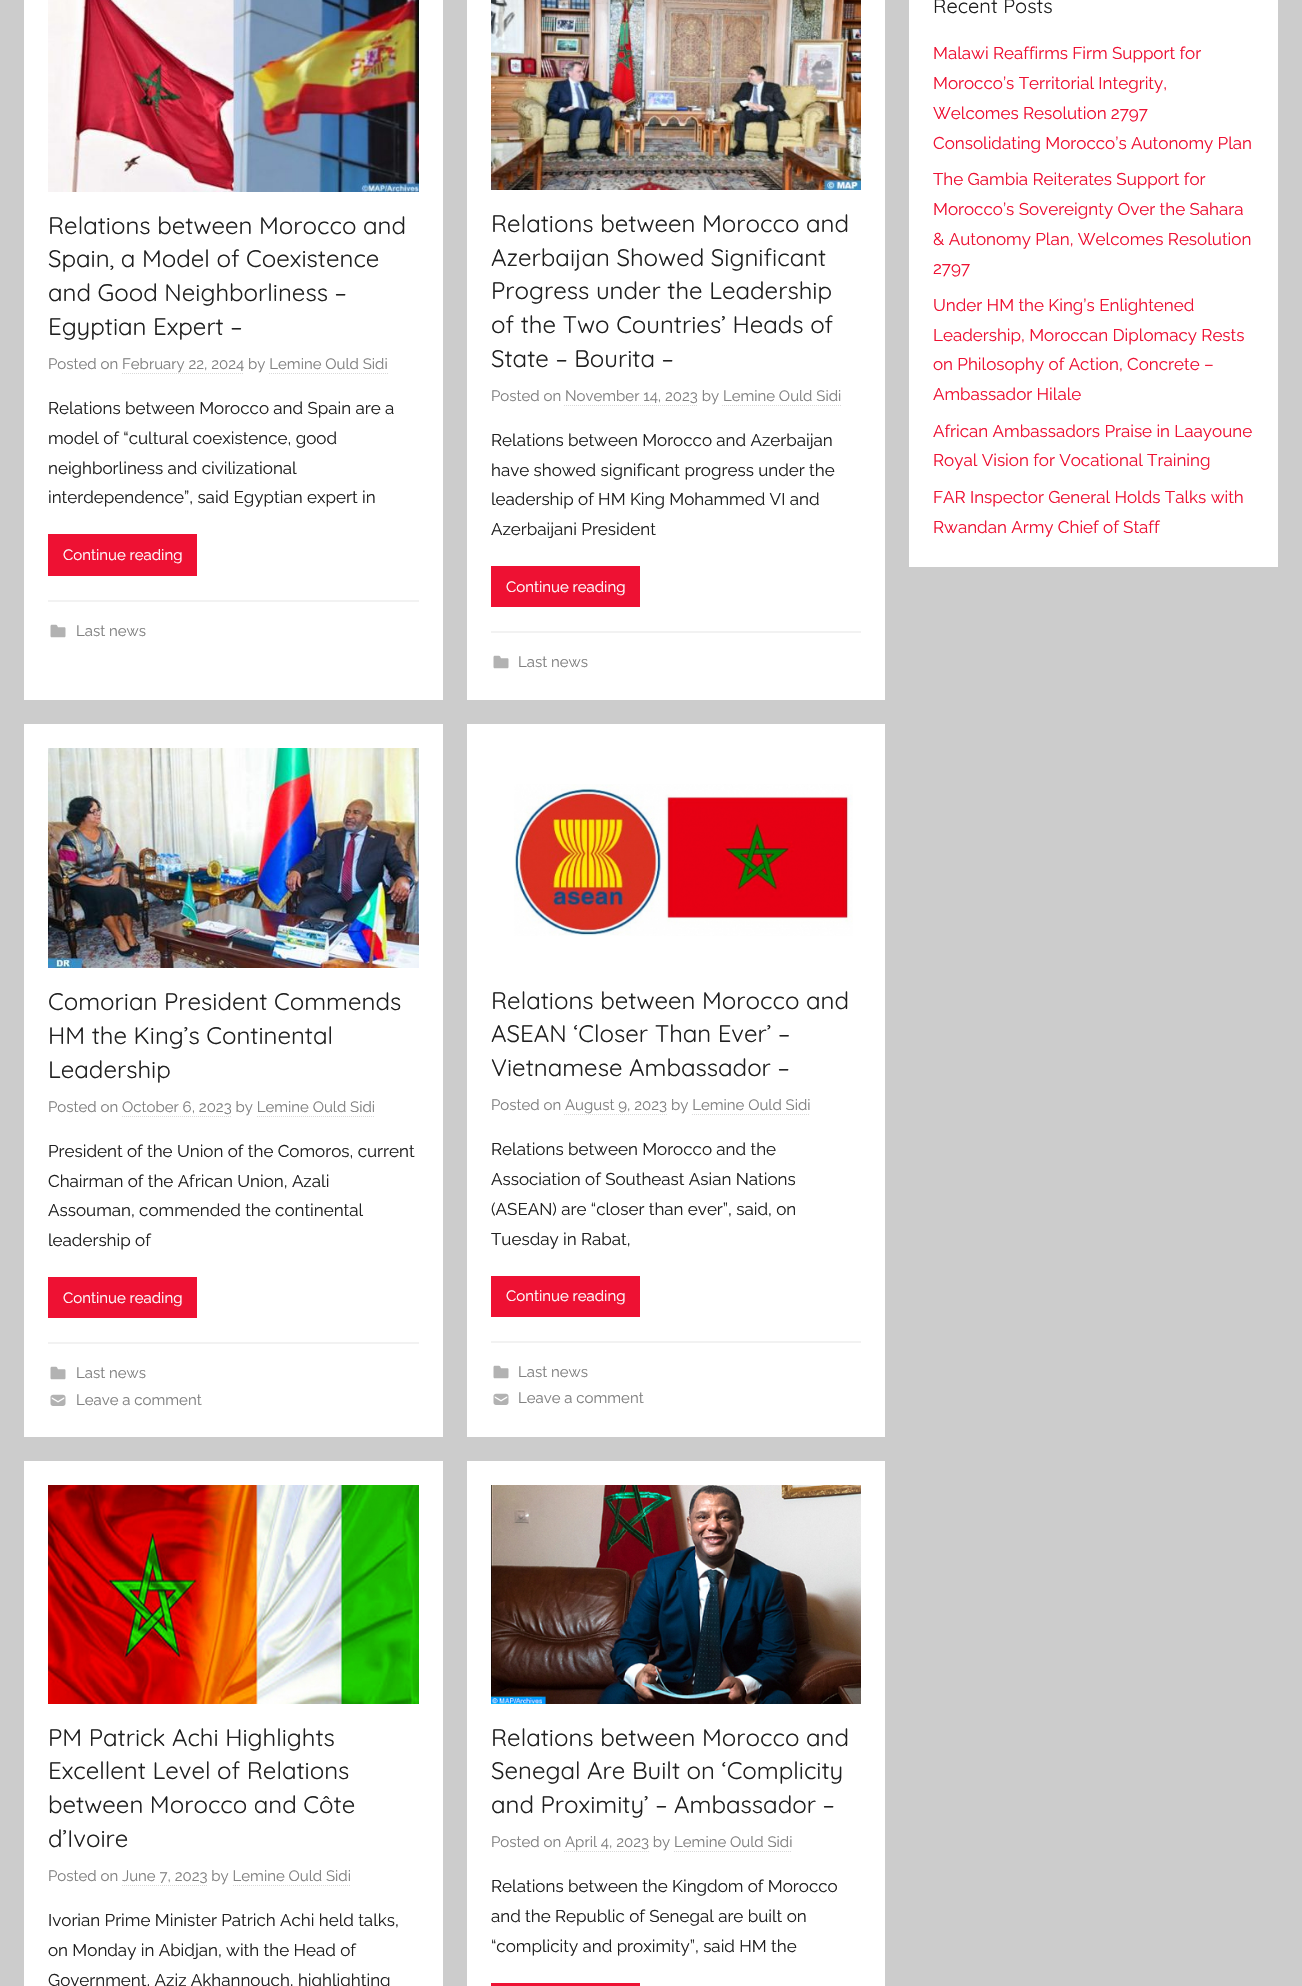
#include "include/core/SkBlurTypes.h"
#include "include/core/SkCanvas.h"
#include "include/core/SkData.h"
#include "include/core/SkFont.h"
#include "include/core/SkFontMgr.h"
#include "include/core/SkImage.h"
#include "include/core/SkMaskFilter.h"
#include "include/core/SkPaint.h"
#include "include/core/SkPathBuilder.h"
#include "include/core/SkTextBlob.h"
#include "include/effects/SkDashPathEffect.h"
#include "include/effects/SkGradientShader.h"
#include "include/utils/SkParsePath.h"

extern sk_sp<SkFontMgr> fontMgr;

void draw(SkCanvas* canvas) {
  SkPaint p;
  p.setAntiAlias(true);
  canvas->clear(SkColorSetRGB(204, 204, 204));
  p.setColor(SK_ColorWHITE);
  canvas->drawRect(SkRect::MakeLTRB(24, 0, 443, 700), p);
  canvas->drawImageRect(SkImages::DeferredFromEncodedData(SkData::MakeFromFileName("images/1.png")), SkRect::MakeLTRB(48, 0, 419, 192), SkSamplingOptions());
  p.setStyle(SkPaint::kStroke_Style);
  p.setStrokeWidth(1);
  p.setColor(SkColorSetRGB(217, 217, 217));
  p.setPathEffect(SkDashPathEffect::Make({{1, 1}}, 0));
  canvas->drawPath(SkPathBuilder().moveTo(122, 373.5f).lineTo(244, 373.5f).detach(), p);
  p.setPathEffect(nullptr);
  p.setPathEffect(SkDashPathEffect::Make({{1, 1}}, 0));
  canvas->drawPath(SkPathBuilder().moveTo(269, 373.5f).lineTo(388, 373.5f).detach(), p);
  p.setPathEffect(nullptr);
  p.setStyle(SkPaint::kFill_Style);
  p.setColor(SkColorSetRGB(238, 17, 51));
  canvas->drawRect(SkRect::MakeLTRB(48, 534, 197, 576), p);
  p.setColor(SkColorSetRGB(242, 242, 242));
  canvas->drawRect(SkRect::MakeLTRB(48, 600, 419, 602), p);
  canvas->drawImageRect(SkImages::DeferredFromEncodedData(SkData::MakeFromFileName("images/2.png")), SkRect::MakeLTRB(50, 624, 66, 638), SkSamplingOptions());
  p.setColor(SK_ColorWHITE);
  canvas->drawRect(SkRect::MakeLTRB(467, 0, 885, 700), p);
  canvas->drawImageRect(SkImages::DeferredFromEncodedData(SkData::MakeFromFileName("images/3.png")), SkRect::MakeLTRB(491, 0, 861, 190), SkSamplingOptions());
  p.setStyle(SkPaint::kStroke_Style);
  p.setColor(SkColorSetRGB(217, 217, 217));
  p.setPathEffect(SkDashPathEffect::Make({{1, 1}}, 0));
  canvas->drawPath(SkPathBuilder().moveTo(564, 405.5f).lineTo(697, 405.5f).detach(), p);
  p.setPathEffect(nullptr);
  p.setPathEffect(SkDashPathEffect::Make({{1, 1}}, 0));
  canvas->drawPath(SkPathBuilder().moveTo(722, 405.5f).lineTo(841, 405.5f).detach(), p);
  p.setPathEffect(nullptr);
  p.setStyle(SkPaint::kFill_Style);
  p.setColor(SkColorSetRGB(238, 17, 51));
  canvas->drawRect(SkRect::MakeLTRB(491, 566, 640, 607), p);
  p.setColor(SkColorSetRGB(242, 242, 242));
  canvas->drawRect(SkRect::MakeLTRB(491, 631, 861, 633), p);
  canvas->drawImageRect(SkImages::DeferredFromEncodedData(SkData::MakeFromFileName("images/2.png")), SkRect::MakeLTRB(493, 655, 509, 669), SkSamplingOptions());
  p.setColor(SK_ColorWHITE);
  canvas->drawRect(SkRect::MakeLTRB(24, 724, 443, 1437), p);
  canvas->drawImageRect(SkImages::DeferredFromEncodedData(SkData::MakeFromFileName("images/4.png")), SkRect::MakeLTRB(48, 748, 419, 968), SkSamplingOptions());
  p.setStyle(SkPaint::kStroke_Style);
  p.setColor(SkColorSetRGB(217, 217, 217));
  p.setPathEffect(SkDashPathEffect::Make({{1, 1}}, 0));
  canvas->drawPath(SkPathBuilder().moveTo(122, 1116.5f).lineTo(232, 1116.5f).detach(), p);
  p.setPathEffect(nullptr);
  p.setPathEffect(SkDashPathEffect::Make({{1, 1}}, 0));
  canvas->drawPath(SkPathBuilder().moveTo(257, 1116.5f).lineTo(375, 1116.5f).detach(), p);
  p.setPathEffect(nullptr);
  p.setStyle(SkPaint::kFill_Style);
  p.setColor(SkColorSetRGB(238, 17, 51));
  canvas->drawRect(SkRect::MakeLTRB(48, 1277, 197, 1318), p);
  p.setColor(SkColorSetRGB(242, 242, 242));
  canvas->drawRect(SkRect::MakeLTRB(48, 1342, 419, 1344), p);
  canvas->drawImageRect(SkImages::DeferredFromEncodedData(SkData::MakeFromFileName("images/2.png")), SkRect::MakeLTRB(50, 1366, 66, 1380), SkSamplingOptions());
  canvas->drawImageRect(SkImages::DeferredFromEncodedData(SkData::MakeFromFileName("images/5.png")), SkRect::MakeLTRB(50, 1394, 66, 1406), SkSamplingOptions());
  p.setColor(SK_ColorWHITE);
  canvas->drawRect(SkRect::MakeLTRB(467, 724, 885, 1437), p);
  canvas->drawImageRect(SkImages::DeferredFromEncodedData(SkData::MakeFromFileName("images/6.png")), SkRect::MakeLTRB(514, 784, 853, 936), SkSamplingOptions());
  p.setStyle(SkPaint::kStroke_Style);
  p.setColor(SkColorSetRGB(217, 217, 217));
  p.setPathEffect(SkDashPathEffect::Make({{1, 1}}, 0));
  canvas->drawPath(SkPathBuilder().moveTo(564, 1114.5f).lineTo(667, 1114.5f).detach(), p);
  p.setPathEffect(nullptr);
  p.setPathEffect(SkDashPathEffect::Make({{1, 1}}, 0));
  canvas->drawPath(SkPathBuilder().moveTo(692, 1114.5f).lineTo(810, 1114.5f).detach(), p);
  p.setPathEffect(nullptr);
  p.setStyle(SkPaint::kFill_Style);
  p.setColor(SkColorSetRGB(238, 17, 51));
  canvas->drawRect(SkRect::MakeLTRB(491, 1276, 640, 1317), p);
  p.setColor(SkColorSetRGB(242, 242, 242));
  canvas->drawRect(SkRect::MakeLTRB(491, 1341, 861, 1343), p);
  canvas->drawImageRect(SkImages::DeferredFromEncodedData(SkData::MakeFromFileName("images/2.png")), SkRect::MakeLTRB(493, 1365, 509, 1379), SkSamplingOptions());
  canvas->drawImageRect(SkImages::DeferredFromEncodedData(SkData::MakeFromFileName("images/5.png")), SkRect::MakeLTRB(493, 1393, 509, 1405), SkSamplingOptions());
  p.setColor(SK_ColorWHITE);
  canvas->drawRect(SkRect::MakeLTRB(24, 1461, 443, 1986), p);
  canvas->drawImageRect(SkImages::DeferredFromEncodedData(SkData::MakeFromFileName("images/7.png")), SkRect::MakeLTRB(48, 1485, 419, 1704), SkSamplingOptions());
  p.setStyle(SkPaint::kStroke_Style);
  p.setColor(SkColorSetRGB(217, 217, 217));
  p.setPathEffect(SkDashPathEffect::Make({{1, 1}}, 0));
  canvas->drawPath(SkPathBuilder().moveTo(122, 1885.5f).lineTo(208, 1885.5f).detach(), p);
  p.setPathEffect(nullptr);
  p.setPathEffect(SkDashPathEffect::Make({{1, 1}}, 0));
  canvas->drawPath(SkPathBuilder().moveTo(233, 1885.5f).lineTo(351, 1885.5f).detach(), p);
  p.setPathEffect(nullptr);
  p.setStyle(SkPaint::kFill_Style);
  p.setColor(SK_ColorWHITE);
  canvas->drawRect(SkRect::MakeLTRB(467, 1461, 885, 1986), p);
  canvas->drawImageRect(SkImages::DeferredFromEncodedData(SkData::MakeFromFileName("images/8.png")), SkRect::MakeLTRB(491, 1485, 861, 1704), SkSamplingOptions());
  p.setStyle(SkPaint::kStroke_Style);
  p.setColor(SkColorSetRGB(217, 217, 217));
  p.setPathEffect(SkDashPathEffect::Make({{1, 1}}, 0));
  canvas->drawPath(SkPathBuilder().moveTo(564, 1851.5f).lineTo(649, 1851.5f).detach(), p);
  p.setPathEffect(nullptr);
  p.setPathEffect(SkDashPathEffect::Make({{1, 1}}, 0));
  canvas->drawPath(SkPathBuilder().moveTo(674, 1851.5f).lineTo(792, 1851.5f).detach(), p);
  p.setPathEffect(nullptr);
  p.setStyle(SkPaint::kFill_Style);
  p.setColor(SkColorSetRGB(238, 17, 51));
  canvas->drawRect(SkRect::MakeLTRB(491, 1983, 640, 1986), p);
  p.setColor(SK_ColorWHITE);
  canvas->drawRect(SkRect::MakeLTRB(909, 0, 1278, 567), p);
  SkFont font1(fontMgr->matchFamilyStyle("Quicksand", SkFontStyle(300, SkFontStyle::kNormal_Width, SkFontStyle::kUpright_Slant)), 24);
  font1.setSubpixel(true);
  p.setColor(SkColorSetRGB(32, 32, 32));
  canvas->drawString("Relations between Morocco and", 48, 234, font1, p);
  canvas->drawString("Spain, a Model of Coexistence", 48, 267, font1, p);
  canvas->drawString("and Good Neighborliness –", 48, 301, font1, p);
  canvas->drawString("Egyptian Expert –", 48, 335, font1, p);
  SkFont font2(fontMgr->matchFamilyStyle("Raleway", SkFontStyle(100, SkFontStyle::kNormal_Width, SkFontStyle::kUpright_Slant)), 15);
  font2.setSubpixel(true);
  p.setColor(SkColorSetRGB(128, 128, 128));
  canvas->drawString("Posted on February 22, 2024 by Lemine Ould Sidi", 48, 369, font2, p);
  SkFont font3(fontMgr->matchFamilyStyle("Raleway", SkFontStyle(100, SkFontStyle::kNormal_Width, SkFontStyle::kUpright_Slant)), 17);
  font3.setSubpixel(true);
  p.setColor(SkColorSetRGB(32, 32, 32));
  canvas->drawString("Relations between Morocco and Spain are a", 48, 414, font3, p);
  canvas->drawString("model of “cultural coexistence, good", 48, 444, font3, p);
  canvas->drawString("neighborliness and civilizational", 48, 474, font3, p);
  canvas->drawString("interdependence”, said Egyptian expert in", 48, 503, font3, p);
  p.setColor(SK_ColorWHITE);
  canvas->drawString("Continue reading", 63, 560, font2, p);
  p.setColor(SkColorSetRGB(128, 128, 128));
  canvas->drawString("Last news", 76, 636, font2, p);
  p.setColor(SkColorSetRGB(32, 32, 32));
  canvas->drawString("Relations between Morocco and", 491, 232, font1, p);
  canvas->drawString("Azerbaijan Showed Significant", 491, 266, font1, p);
  canvas->drawString("Progress under the Leadership", 491, 299, font1, p);
  canvas->drawString("of the Two Countries’ Heads of", 491, 333, font1, p);
  canvas->drawString("State – Bourita –", 491, 367, font1, p);
  p.setColor(SkColorSetRGB(128, 128, 128));
  canvas->drawString("Posted on November 14, 2023 by Lemine Ould Sidi", 491, 401, font2, p);
  p.setColor(SkColorSetRGB(32, 32, 32));
  canvas->drawString("Relations between Morocco and Azerbaijan", 491, 446, font3, p);
  canvas->drawString("have showed significant progress under the", 491, 476, font3, p);
  canvas->drawString("leadership of HM King Mohammed VI and", 491, 505, font3, p);
  canvas->drawString("Azerbaijani President", 491, 535, font3, p);
  p.setColor(SK_ColorWHITE);
  canvas->drawString("Continue reading", 506, 592, font2, p);
  p.setColor(SkColorSetRGB(128, 128, 128));
  canvas->drawString("Last news", 518, 667, font2, p);
  p.setColor(SkColorSetRGB(32, 32, 32));
  canvas->drawString("Comorian President Commends", 48, 1010, font1, p);
  canvas->drawString("HM the King’s Continental", 48, 1044, font1, p);
  canvas->drawString("Leadership", 48, 1078, font1, p);
  p.setColor(SkColorSetRGB(128, 128, 128));
  canvas->drawString("Posted on October 6, 2023 by Lemine Ould Sidi", 48, 1112, font2, p);
  p.setColor(SkColorSetRGB(32, 32, 32));
  canvas->drawString("President of the Union of the Comoros, current", 48, 1157, font3, p);
  canvas->drawString("Chairman of the African Union, Azali", 48, 1187, font3, p);
  canvas->drawString("Assouman, commended the continental", 48, 1216, font3, p);
  canvas->drawString("leadership of", 48, 1246, font3, p);
  p.setColor(SK_ColorWHITE);
  canvas->drawString("Continue reading", 63, 1303, font2, p);
  p.setColor(SkColorSetRGB(128, 128, 128));
  canvas->drawString("Last news", 76, 1378, font2, p);
  canvas->drawString("Leave a comment", 76, 1405, font2, p);
  p.setColor(SkColorSetRGB(32, 32, 32));
  canvas->drawString("Relations between Morocco and", 491, 1009, font1, p);
  canvas->drawString("ASEAN ‘Closer Than Ever’ –", 491, 1042, font1, p);
  canvas->drawString("Vietnamese Ambassador –", 491, 1076, font1, p);
  p.setColor(SkColorSetRGB(128, 128, 128));
  canvas->drawString("Posted on August 9, 2023 by Lemine Ould Sidi", 491, 1110, font2, p);
  p.setColor(SkColorSetRGB(32, 32, 32));
  canvas->drawString("Relations between Morocco and the", 491, 1155, font3, p);
  canvas->drawString("Association of Southeast Asian Nations", 491, 1185, font3, p);
  canvas->drawString("(ASEAN) are “closer than ever”, said, on", 491, 1215, font3, p);
  canvas->drawString("Tuesday in Rabat,", 491, 1245, font3, p);
  p.setColor(SK_ColorWHITE);
  canvas->drawString("Continue reading", 506, 1301, font2, p);
  p.setColor(SkColorSetRGB(128, 128, 128));
  canvas->drawString("Last news", 518, 1377, font2, p);
  canvas->drawString("Leave a comment", 518, 1403, font2, p);
  p.setColor(SkColorSetRGB(32, 32, 32));
  canvas->drawString("PM Patrick Achi Highlights", 48, 1746, font1, p);
  canvas->drawString("Excellent Level of Relations", 48, 1779, font1, p);
  canvas->drawString("between Morocco and Côte", 48, 1813, font1, p);
  canvas->drawString("d’Ivoire", 48, 1847, font1, p);
  p.setColor(SkColorSetRGB(128, 128, 128));
  canvas->drawString("Posted on June 7, 2023 by Lemine Ould Sidi", 48, 1881, font2, p);
  p.setColor(SkColorSetRGB(32, 32, 32));
  canvas->drawString("Ivorian Prime Minister Patrich Achi held talks,", 48, 1926, font3, p);
  canvas->drawString("on Monday in Abidjan, with the Head of", 48, 1956, font3, p);
  canvas->drawString("Government, Aziz Akhannouch, highlighting", 48, 1986, font3, p);
  canvas->drawString("Relations between Morocco and", 491, 1746, font1, p);
  canvas->drawString("Senegal Are Built on ‘Complicity", 491, 1779, font1, p);
  canvas->drawString("and Proximity’ – Ambassador –", 491, 1813, font1, p);
  p.setColor(SkColorSetRGB(128, 128, 128));
  canvas->drawString("Posted on April 4, 2023 by Lemine Ould Sidi", 491, 1847, font2, p);
  p.setColor(SkColorSetRGB(32, 32, 32));
  canvas->drawString("Relations between the Kingdom of Morocco", 491, 1892, font3, p);
  canvas->drawString("and the Republic of Senegal are built on", 491, 1922, font3, p);
  canvas->drawString("“complicity and proximity”, said HM the", 491, 1952, font3, p);
  SkFont font4(fontMgr->matchFamilyStyle("Quicksand", SkFontStyle(300, SkFontStyle::kNormal_Width, SkFontStyle::kUpright_Slant)), 20);
  font4.setSubpixel(true);
  canvas->drawString("Recent Posts", 933, 13, font4, p);
  p.setColor(SkColorSetRGB(238, 17, 51));
  canvas->drawString("Malawi Reaffirms Firm Support for", 933, 59, font3, p);
  canvas->drawString("Morocco’s Territorial Integrity,", 933, 89, font3, p);
  canvas->drawString("Welcomes Resolution 2797", 933, 119, font3, p);
  canvas->drawString("Consolidating Morocco’s Autonomy Plan", 933, 149, font3, p);
  canvas->drawString("The Gambia Reiterates Support for", 933, 185, font3, p);
  canvas->drawString("Morocco’s Sovereignty Over the Sahara", 933, 215, font3, p);
  canvas->drawString("& Autonomy Plan, Welcomes Resolution", 933, 245, font3, p);
  canvas->drawString("2797", 933, 274, font3, p);
  canvas->drawString("Under HM the King’s Enlightened", 933, 311, font3, p);
  canvas->drawString("Leadership, Moroccan Diplomacy Rests", 933, 341, font3, p);
  canvas->drawString("on Philosophy of Action, Concrete –", 933, 370, font3, p);
  canvas->drawString("Ambassador Hilale", 933, 400, font3, p);
  canvas->drawString("African Ambassadors Praise in Laayoune", 933, 437, font3, p);
  canvas->drawString("Royal Vision for Vocational Training", 933, 466, font3, p);
  canvas->drawString("FAR Inspector General Holds Talks with", 933, 503, font3, p);
  canvas->drawString("Rwandan Army Chief of Staff", 933, 533, font3, p);
}
